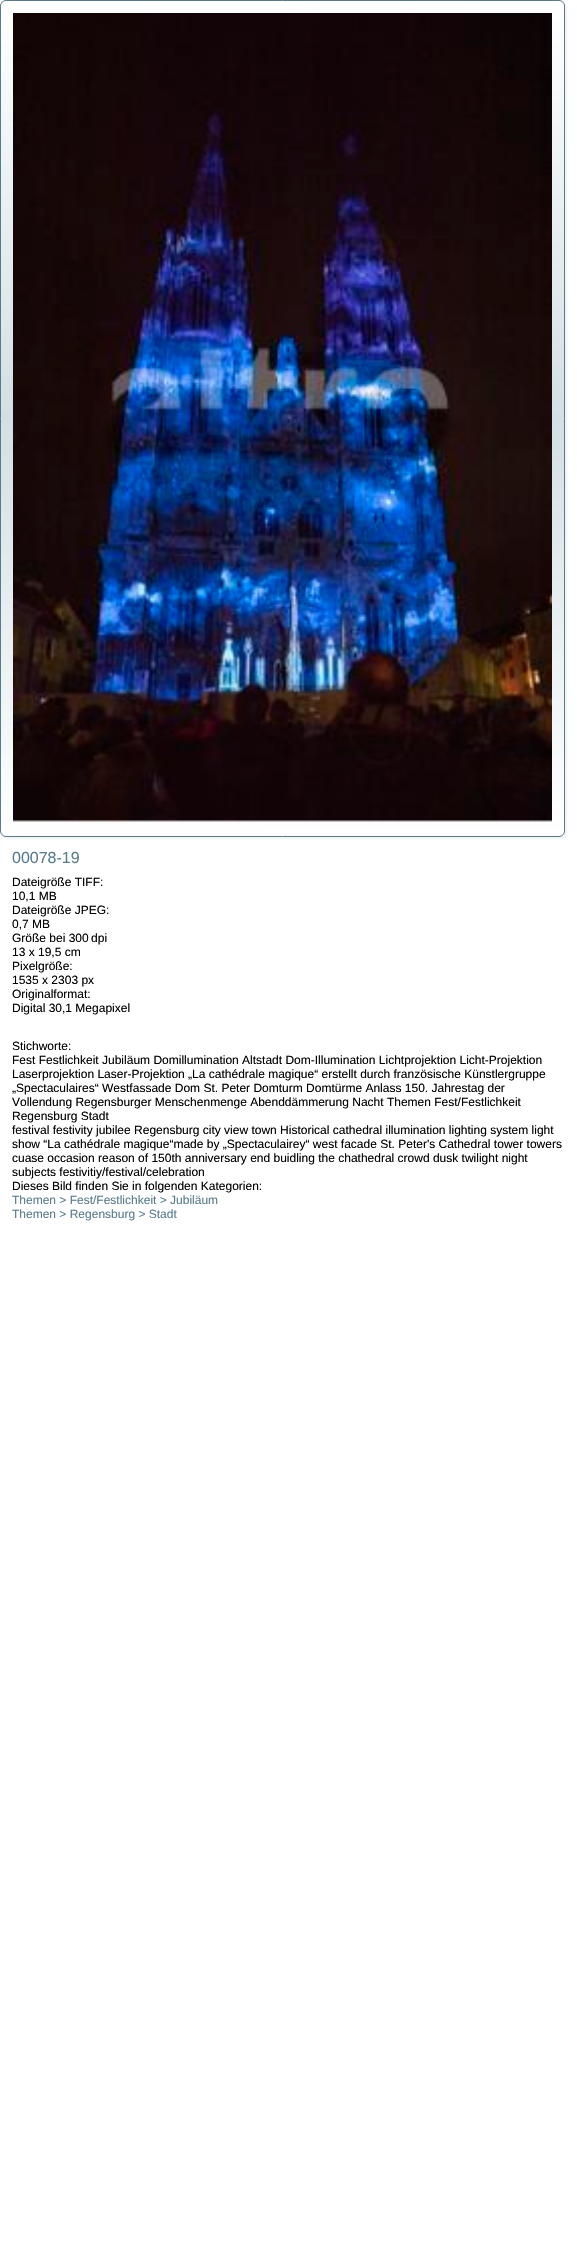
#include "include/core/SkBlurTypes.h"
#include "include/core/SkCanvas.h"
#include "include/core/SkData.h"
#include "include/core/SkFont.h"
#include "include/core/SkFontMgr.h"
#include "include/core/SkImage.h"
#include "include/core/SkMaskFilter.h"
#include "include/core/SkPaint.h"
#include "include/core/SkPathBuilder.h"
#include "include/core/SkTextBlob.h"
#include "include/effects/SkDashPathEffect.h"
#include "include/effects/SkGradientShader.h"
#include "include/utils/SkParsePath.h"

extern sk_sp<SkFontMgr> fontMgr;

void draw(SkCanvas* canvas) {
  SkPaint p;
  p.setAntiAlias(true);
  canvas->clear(SK_ColorWHITE);
  p.setColor(SkColorSetARGB(13, 0, 0, 0));
  p.setMaskFilter(SkMaskFilter::MakeBlur(kNormal_SkBlurStyle, 1));
  canvas->drawRoundRect(SkRect::MakeLTRB(2, 2, 567, 839), 6, 6, p);
  p.setMaskFilter(nullptr);
  canvas->save();
  canvas->clipPath(SkPathBuilder().moveTo(6, 0).lineTo(559, 0).cubicTo(562.5f, 0, 565, 2.5f, 565, 6).lineTo(565, 831).cubicTo(565, 834.5f, 562.5f, 837, 559, 837).lineTo(6, 837).cubicTo(2.5f, 837, 0, 834.5f, 0, 831).lineTo(0, 6).cubicTo(0, 2.5f, 2.5f, 0, 6, 0).close().detach(), true);
  {
    const SkColor colors[] = {SK_ColorWHITE, SkColorSetRGB(211, 223, 228), SK_ColorWHITE};
    const float stops[] = {0, 0.5f, 1};
    const SkPoint ends[] = {{282, 1}, {283, 836}};
    p.setShader(SkGradientShader::MakeLinear(ends, colors, stops, 3, SkTileMode::kClamp));
    p.setAlpha(255);
  }
  canvas->drawRect(SkRect::MakeLTRB(0, 1, 565, 836), p);
  canvas->restore();
  p.setStyle(SkPaint::kStroke_Style);
  p.setStrokeWidth(1);
  p.setShader(nullptr);
  p.setColor(SkColorSetRGB(87, 123, 141));
  canvas->drawRoundRect(SkRect::MakeLTRB(0.5f, 0.5f, 564.5f, 836.5f), 5.5f, 5.5f, p);
  canvas->drawImageRect(SkImages::DeferredFromEncodedData(SkData::MakeFromFileName("images/1.png")), SkRect::MakeLTRB(13, 13, 552, 822), SkSamplingOptions());
  SkFont font1(fontMgr->matchFamilyStyle("Liberation Sans", SkFontStyle::Normal()), 16);
  font1.setSubpixel(true);
  p.setStyle(SkPaint::kFill_Style);
  canvas->drawString("00078-19", 12, 863, font1, p);
  SkFont font2(fontMgr->matchFamilyStyle("Liberation Sans", SkFontStyle::Normal()), 12);
  font2.setSubpixel(true);
  p.setColor(SK_ColorBLACK);
  canvas->drawString("Dateigröße TIFF:", 12, 886, font2, p);
  canvas->drawString("10,1 MB", 12, 900, font2, p);
  canvas->drawString("Dateigröße JPEG:", 12, 914, font2, p);
  canvas->drawString("0,7 MB", 12, 928, font2, p);
  canvas->drawString("Größe bei 300 dpi", 12, 942, font2, p);
  canvas->drawString("13 x 19,5 cm", 12, 956, font2, p);
  canvas->drawString("Pixelgröße:", 12, 970, font2, p);
  canvas->drawString("1535 x 2303 px", 12, 984, font2, p);
  canvas->drawString("Originalformat:", 12, 998, font2, p);
  canvas->drawString("Digital 30,1 Megapixel", 12, 1012, font2, p);
  canvas->drawString("Stichworte:", 12, 1050, font2, p);
  canvas->drawString("Fest Festlichkeit Jubiläum Domillumination Altstadt Dom-Illumination Lichtprojektion Licht-Projektion", 12, 1064, font2, p);
  canvas->drawString("Laserprojektion Laser-Projektion „La cathédrale magique“ erstellt durch französische Künstlergruppe", 12, 1078, font2, p);
  canvas->drawString("„Spectaculaires“ Westfassade Dom St. Peter Domturm Domtürme Anlass 150. Jahrestag der", 12, 1092, font2, p);
  canvas->drawString("Vollendung Regensburger Menschenmenge Abenddämmerung Nacht Themen Fest/Festlichkeit", 12, 1106, font2, p);
  canvas->drawString("Regensburg Stadt", 12, 1120, font2, p);
  canvas->drawString("festival festivity jubilee Regensburg city view town Historical cathedral illumination lighting system light", 12, 1134, font2, p);
  canvas->drawString("show “La cathédrale magique“made by „Spectaculairey“ west facade St. Peter's Cathedral tower towers", 12, 1148, font2, p);
  canvas->drawString("cuase occasion reason of 150th anniversary end buidling the chathedral crowd dusk twilight night", 12, 1162, font2, p);
  canvas->drawString("subjects festivitiy/festival/celebration", 12, 1176, font2, p);
  canvas->drawString("Dieses Bild finden Sie in folgenden Kategorien:", 12, 1190, font2, p);
  p.setColor(SkColorSetRGB(87, 123, 141));
  canvas->drawString("Themen > Fest/Festlichkeit > Jubiläum", 12, 1204, font2, p);
  canvas->drawString("Themen > Regensburg > Stadt", 12, 1218, font2, p);
}
